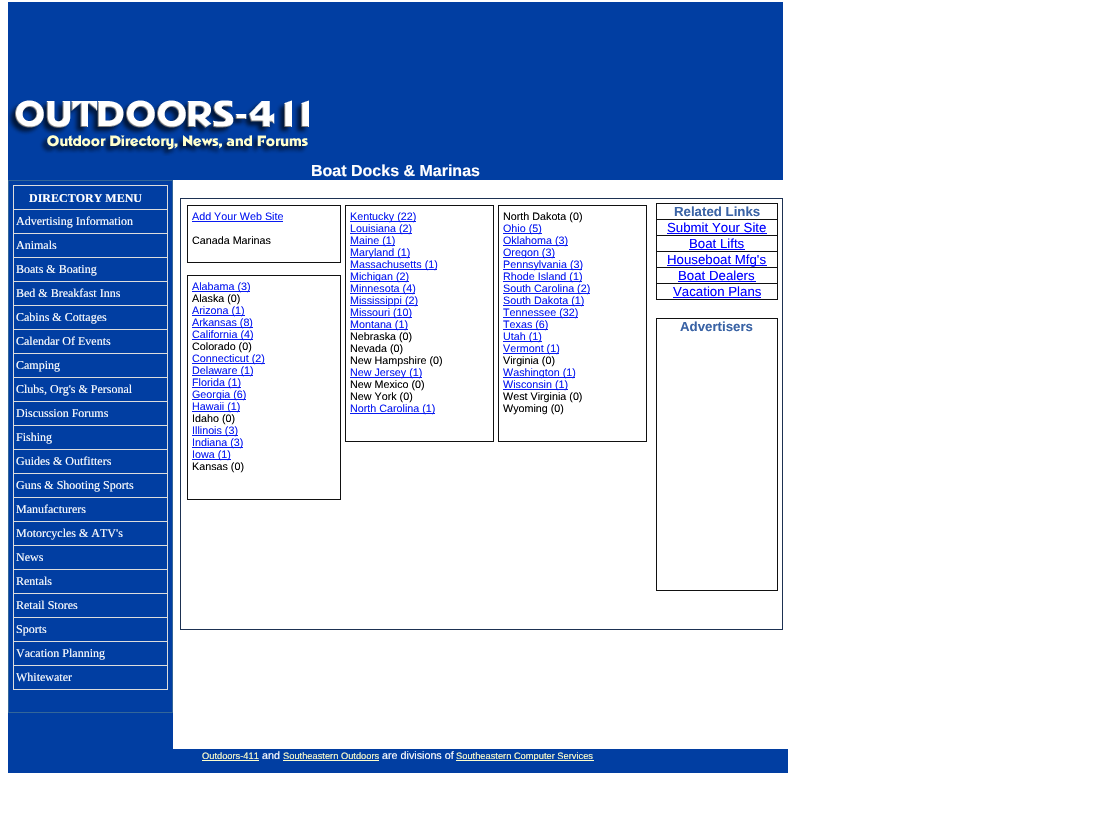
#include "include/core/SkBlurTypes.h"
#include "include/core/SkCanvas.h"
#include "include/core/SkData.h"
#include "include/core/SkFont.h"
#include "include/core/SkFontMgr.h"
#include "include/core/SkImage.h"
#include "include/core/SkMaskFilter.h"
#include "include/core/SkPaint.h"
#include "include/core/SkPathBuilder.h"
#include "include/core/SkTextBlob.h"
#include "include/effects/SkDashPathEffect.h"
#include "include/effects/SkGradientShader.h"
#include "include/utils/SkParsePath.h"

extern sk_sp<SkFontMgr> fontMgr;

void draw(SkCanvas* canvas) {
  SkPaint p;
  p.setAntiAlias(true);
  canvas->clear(SK_ColorWHITE);
  p.setColor(SkColorSetRGB(1, 62, 162));
  canvas->drawRect(SkRect::MakeLTRB(8, 2, 783, 180), p);
  canvas->drawImageRect(SkImages::DeferredFromEncodedData(SkData::MakeFromFileName("images/1.png")), SkRect::MakeLTRB(8, 100, 309, 156), SkSamplingOptions());
  canvas->drawRect(SkRect::MakeLTRB(8, 713, 173, 749), p);
  p.setColor(SkColorSetRGB(51, 102, 153));
  canvas->drawRect(SkRect::MakeLTRB(8, 180, 173, 713), p);
  p.setColor(SkColorSetRGB(1, 62, 162));
  canvas->drawRect(SkRect::MakeLTRB(9, 181, 172, 712), p);
  p.setColor(SkColorSetRGB(221, 221, 221));
  canvas->drawRect(SkRect::MakeLTRB(13, 185, 168, 186), p);
  canvas->drawRect(SkRect::MakeLTRB(167, 185, 168, 209), p);
  canvas->drawRect(SkRect::MakeLTRB(13, 185, 14, 209), p);
  canvas->drawRect(SkRect::MakeLTRB(13, 209, 168, 210), p);
  canvas->drawRect(SkRect::MakeLTRB(167, 209, 168, 233), p);
  canvas->drawRect(SkRect::MakeLTRB(13, 209, 14, 233), p);
  canvas->drawRect(SkRect::MakeLTRB(13, 233, 168, 234), p);
  canvas->drawRect(SkRect::MakeLTRB(167, 233, 168, 257), p);
  canvas->drawRect(SkRect::MakeLTRB(13, 233, 14, 257), p);
  canvas->drawRect(SkRect::MakeLTRB(13, 257, 168, 258), p);
  canvas->drawRect(SkRect::MakeLTRB(167, 257, 168, 281), p);
  canvas->drawRect(SkRect::MakeLTRB(13, 257, 14, 281), p);
  canvas->drawRect(SkRect::MakeLTRB(13, 281, 168, 282), p);
  canvas->drawRect(SkRect::MakeLTRB(167, 281, 168, 305), p);
  canvas->drawRect(SkRect::MakeLTRB(13, 281, 14, 305), p);
  canvas->drawRect(SkRect::MakeLTRB(13, 305, 168, 306), p);
  canvas->drawRect(SkRect::MakeLTRB(167, 305, 168, 329), p);
  canvas->drawRect(SkRect::MakeLTRB(13, 305, 14, 329), p);
  canvas->drawRect(SkRect::MakeLTRB(13, 329, 168, 330), p);
  canvas->drawRect(SkRect::MakeLTRB(167, 329, 168, 353), p);
  canvas->drawRect(SkRect::MakeLTRB(13, 329, 14, 353), p);
  canvas->drawRect(SkRect::MakeLTRB(13, 353, 168, 354), p);
  canvas->drawRect(SkRect::MakeLTRB(167, 353, 168, 377), p);
  canvas->drawRect(SkRect::MakeLTRB(13, 353, 14, 377), p);
  canvas->drawRect(SkRect::MakeLTRB(13, 377, 168, 378), p);
  canvas->drawRect(SkRect::MakeLTRB(167, 377, 168, 401), p);
  canvas->drawRect(SkRect::MakeLTRB(13, 377, 14, 401), p);
  canvas->drawRect(SkRect::MakeLTRB(13, 401, 168, 402), p);
  canvas->drawRect(SkRect::MakeLTRB(167, 401, 168, 425), p);
  canvas->drawRect(SkRect::MakeLTRB(13, 401, 14, 425), p);
  canvas->drawRect(SkRect::MakeLTRB(13, 425, 168, 426), p);
  canvas->drawRect(SkRect::MakeLTRB(167, 425, 168, 449), p);
  canvas->drawRect(SkRect::MakeLTRB(13, 425, 14, 449), p);
  canvas->drawRect(SkRect::MakeLTRB(13, 449, 168, 450), p);
  canvas->drawRect(SkRect::MakeLTRB(167, 449, 168, 473), p);
  canvas->drawRect(SkRect::MakeLTRB(13, 449, 14, 473), p);
  canvas->drawRect(SkRect::MakeLTRB(13, 473, 168, 474), p);
  canvas->drawRect(SkRect::MakeLTRB(167, 473, 168, 497), p);
  canvas->drawRect(SkRect::MakeLTRB(13, 473, 14, 497), p);
  canvas->drawRect(SkRect::MakeLTRB(13, 497, 168, 498), p);
  canvas->drawRect(SkRect::MakeLTRB(167, 497, 168, 521), p);
  canvas->drawRect(SkRect::MakeLTRB(13, 497, 14, 521), p);
  canvas->drawRect(SkRect::MakeLTRB(13, 521, 168, 522), p);
  canvas->drawRect(SkRect::MakeLTRB(167, 521, 168, 545), p);
  canvas->drawRect(SkRect::MakeLTRB(13, 521, 14, 545), p);
  canvas->drawRect(SkRect::MakeLTRB(13, 545, 168, 546), p);
  canvas->drawRect(SkRect::MakeLTRB(167, 545, 168, 569), p);
  canvas->drawRect(SkRect::MakeLTRB(13, 545, 14, 569), p);
  canvas->drawRect(SkRect::MakeLTRB(13, 569, 168, 570), p);
  canvas->drawRect(SkRect::MakeLTRB(167, 569, 168, 593), p);
  canvas->drawRect(SkRect::MakeLTRB(13, 569, 14, 593), p);
  canvas->drawRect(SkRect::MakeLTRB(13, 593, 168, 594), p);
  canvas->drawRect(SkRect::MakeLTRB(167, 593, 168, 617), p);
  canvas->drawRect(SkRect::MakeLTRB(13, 593, 14, 617), p);
  canvas->drawRect(SkRect::MakeLTRB(13, 617, 168, 618), p);
  canvas->drawRect(SkRect::MakeLTRB(167, 617, 168, 641), p);
  canvas->drawRect(SkRect::MakeLTRB(13, 617, 14, 641), p);
  canvas->drawRect(SkRect::MakeLTRB(13, 641, 168, 642), p);
  canvas->drawRect(SkRect::MakeLTRB(167, 641, 168, 665), p);
  canvas->drawRect(SkRect::MakeLTRB(13, 641, 14, 665), p);
  p.setStyle(SkPaint::kStroke_Style);
  p.setStrokeWidth(1);
  canvas->drawRect(SkRect::MakeLTRB(13.5f, 665.5f, 167.5f, 689.5f), p);
  p.setStyle(SkPaint::kFill_Style);
  p.setColor(SkColorSetRGB(29, 49, 82));
  canvas->drawRect(SkRect::MakeLTRB(180, 198, 783, 630), p);
  p.setColor(SK_ColorWHITE);
  canvas->drawRect(SkRect::MakeLTRB(181, 199, 782, 629), p);
  p.setColor(SkColorSetRGB(17, 17, 17));
  canvas->drawRect(SkRect::MakeLTRB(187, 205, 341, 206), p);
  canvas->drawRect(SkRect::MakeLTRB(340, 205, 341, 263), p);
  canvas->drawRect(SkRect::MakeLTRB(187, 262, 341, 263), p);
  canvas->drawRect(SkRect::MakeLTRB(187, 205, 188, 263), p);
  p.setColor(SkColorSetRGB(9, 26, 241));
  canvas->drawRect(SkRect::MakeLTRB(192, 221, 283, 222), p);
  p.setColor(SkColorSetRGB(17, 17, 17));
  canvas->drawRect(SkRect::MakeLTRB(187, 275, 341, 276), p);
  canvas->drawRect(SkRect::MakeLTRB(340, 275, 341, 500), p);
  canvas->drawRect(SkRect::MakeLTRB(187, 499, 341, 500), p);
  canvas->drawRect(SkRect::MakeLTRB(187, 275, 188, 500), p);
  p.setColor(SkColorSetRGB(9, 26, 241));
  canvas->drawRect(SkRect::MakeLTRB(192, 291, 250, 292), p);
  canvas->drawRect(SkRect::MakeLTRB(192, 315, 245, 316), p);
  canvas->drawRect(SkRect::MakeLTRB(192, 327, 253, 328), p);
  canvas->drawRect(SkRect::MakeLTRB(192, 339, 253, 340), p);
  canvas->drawRect(SkRect::MakeLTRB(192, 363, 265, 364), p);
  canvas->drawRect(SkRect::MakeLTRB(192, 375, 253, 376), p);
  canvas->drawRect(SkRect::MakeLTRB(192, 387, 241, 388), p);
  canvas->drawRect(SkRect::MakeLTRB(192, 399, 246, 400), p);
  canvas->drawRect(SkRect::MakeLTRB(192, 411, 240, 412), p);
  canvas->drawRect(SkRect::MakeLTRB(192, 435, 238, 436), p);
  canvas->drawRect(SkRect::MakeLTRB(192, 447, 243, 448), p);
  canvas->drawRect(SkRect::MakeLTRB(192, 459, 231, 460), p);
  p.setColor(SkColorSetRGB(17, 17, 17));
  canvas->drawRect(SkRect::MakeLTRB(345, 205, 494, 206), p);
  canvas->drawRect(SkRect::MakeLTRB(493, 205, 494, 442), p);
  canvas->drawRect(SkRect::MakeLTRB(345, 441, 494, 442), p);
  canvas->drawRect(SkRect::MakeLTRB(345, 205, 346, 442), p);
  p.setColor(SkColorSetRGB(9, 26, 241));
  canvas->drawRect(SkRect::MakeLTRB(350, 221, 416, 222), p);
  canvas->drawRect(SkRect::MakeLTRB(350, 233, 412, 234), p);
  canvas->drawRect(SkRect::MakeLTRB(350, 245, 395, 246), p);
  canvas->drawRect(SkRect::MakeLTRB(350, 257, 410, 258), p);
  canvas->drawRect(SkRect::MakeLTRB(350, 269, 437, 270), p);
  canvas->drawRect(SkRect::MakeLTRB(350, 281, 409, 282), p);
  canvas->drawRect(SkRect::MakeLTRB(350, 293, 415, 294), p);
  canvas->drawRect(SkRect::MakeLTRB(350, 305, 418, 306), p);
  canvas->drawRect(SkRect::MakeLTRB(350, 317, 412, 318), p);
  canvas->drawRect(SkRect::MakeLTRB(350, 329, 408, 330), p);
  canvas->drawRect(SkRect::MakeLTRB(350, 377, 422, 378), p);
  canvas->drawRect(SkRect::MakeLTRB(350, 413, 435, 414), p);
  p.setColor(SkColorSetRGB(17, 17, 17));
  canvas->drawRect(SkRect::MakeLTRB(498, 205, 647, 206), p);
  canvas->drawRect(SkRect::MakeLTRB(646, 205, 647, 442), p);
  canvas->drawRect(SkRect::MakeLTRB(498, 441, 647, 442), p);
  canvas->drawRect(SkRect::MakeLTRB(498, 205, 499, 442), p);
  p.setColor(SkColorSetRGB(9, 26, 241));
  canvas->drawRect(SkRect::MakeLTRB(503, 233, 542, 234), p);
  canvas->drawRect(SkRect::MakeLTRB(503, 245, 568, 246), p);
  canvas->drawRect(SkRect::MakeLTRB(503, 257, 555, 258), p);
  canvas->drawRect(SkRect::MakeLTRB(503, 269, 582, 270), p);
  canvas->drawRect(SkRect::MakeLTRB(503, 281, 582, 282), p);
  canvas->drawRect(SkRect::MakeLTRB(503, 293, 590, 294), p);
  canvas->drawRect(SkRect::MakeLTRB(503, 305, 584, 306), p);
  canvas->drawRect(SkRect::MakeLTRB(503, 317, 578, 318), p);
  canvas->drawRect(SkRect::MakeLTRB(503, 329, 548, 330), p);
  canvas->drawRect(SkRect::MakeLTRB(503, 341, 542, 342), p);
  canvas->drawRect(SkRect::MakeLTRB(503, 353, 559, 354), p);
  canvas->drawRect(SkRect::MakeLTRB(503, 377, 575, 378), p);
  canvas->drawRect(SkRect::MakeLTRB(503, 389, 568, 390), p);
  p.setColor(SkColorSetRGB(17, 17, 17));
  canvas->drawRect(SkRect::MakeLTRB(656, 203, 778, 204), p);
  canvas->drawRect(SkRect::MakeLTRB(777, 203, 778, 300), p);
  canvas->drawRect(SkRect::MakeLTRB(656, 299, 778, 300), p);
  canvas->drawRect(SkRect::MakeLTRB(656, 203, 657, 300), p);
  canvas->drawRect(SkRect::MakeLTRB(656, 219, 778, 220), p);
  p.setColor(SkColorSetRGB(0, 0, 255));
  canvas->drawRect(SkRect::MakeLTRB(667, 233, 767, 234), p);
  p.setColor(SkColorSetRGB(17, 17, 17));
  canvas->drawRect(SkRect::MakeLTRB(656, 235, 778, 236), p);
  p.setColor(SkColorSetRGB(0, 0, 255));
  canvas->drawRect(SkRect::MakeLTRB(689, 249, 745, 250), p);
  p.setColor(SkColorSetRGB(17, 17, 17));
  canvas->drawRect(SkRect::MakeLTRB(656, 251, 778, 252), p);
  p.setColor(SkColorSetRGB(0, 0, 255));
  canvas->drawRect(SkRect::MakeLTRB(667, 265, 767, 266), p);
  p.setColor(SkColorSetRGB(17, 17, 17));
  canvas->drawRect(SkRect::MakeLTRB(656, 267, 778, 268), p);
  p.setColor(SkColorSetRGB(0, 0, 255));
  canvas->drawRect(SkRect::MakeLTRB(678, 281, 756, 282), p);
  p.setColor(SkColorSetRGB(17, 17, 17));
  canvas->drawRect(SkRect::MakeLTRB(656, 283, 778, 284), p);
  p.setColor(SkColorSetRGB(0, 0, 255));
  canvas->drawRect(SkRect::MakeLTRB(673, 297, 761, 298), p);
  p.setColor(SkColorSetRGB(17, 17, 17));
  canvas->drawRect(SkRect::MakeLTRB(656, 318, 778, 319), p);
  canvas->drawRect(SkRect::MakeLTRB(777, 318, 778, 591), p);
  canvas->drawRect(SkRect::MakeLTRB(656, 590, 778, 591), p);
  canvas->drawRect(SkRect::MakeLTRB(656, 318, 657, 591), p);
  p.setColor(SkColorSetRGB(1, 62, 162));
  canvas->drawRect(SkRect::MakeLTRB(8, 749, 788, 773), p);
  p.setColor(SkColorSetRGB(255, 255, 204));
  canvas->drawRect(SkRect::MakeLTRB(202, 760, 259, 761), p);
  canvas->drawRect(SkRect::MakeLTRB(283, 760, 379, 761), p);
  canvas->drawRect(SkRect::MakeLTRB(456, 760, 594, 761), p);
  SkFont font1(fontMgr->matchFamilyStyle("Liberation Sans", SkFontStyle::Bold()), 16);
  font1.setSubpixel(true);
  p.setColor(SK_ColorWHITE);
  canvas->drawString("Boat Docks & Marinas", 311, 176, font1, p);
  SkFont font2(fontMgr->matchFamilyStyle("Liberation Serif", SkFontStyle::Bold()), 12);
  font2.setSubpixel(true);
  canvas->drawString("DIRECTORY MENU", 29, 202, font2, p);
  SkFont font3(fontMgr->matchFamilyStyle("Liberation Serif", SkFontStyle::Normal()), 12);
  font3.setSubpixel(true);
  canvas->drawString("Advertising Information", 16, 225, font3, p);
  canvas->drawString("Animals", 16, 249, font3, p);
  canvas->drawString("Boats & Boating", 16, 273, font3, p);
  canvas->drawString("Bed & Breakfast Inns", 16, 297, font3, p);
  canvas->drawString("Cabins & Cottages", 16, 321, font3, p);
  canvas->drawString("Calendar Of Events", 16, 345, font3, p);
  canvas->drawString("Camping", 16, 369, font3, p);
  canvas->drawString("Clubs, Org's & Personal", 16, 393, font3, p);
  canvas->drawString("Discussion Forums", 16, 417, font3, p);
  canvas->drawString("Fishing", 16, 441, font3, p);
  canvas->drawString("Guides & Outfitters", 16, 465, font3, p);
  canvas->drawString("Guns & Shooting Sports", 16, 489, font3, p);
  canvas->drawString("Manufacturers", 16, 513, font3, p);
  canvas->drawString("Motorcycles & ATV's", 16, 537, font3, p);
  canvas->drawString("News", 16, 561, font3, p);
  canvas->drawString("Rentals", 16, 585, font3, p);
  canvas->drawString("Retail Stores", 16, 609, font3, p);
  canvas->drawString("Sports", 16, 633, font3, p);
  canvas->drawString("Vacation Planning", 16, 657, font3, p);
  canvas->drawString("Whitewater", 16, 681, font3, p);
  SkFont font4(fontMgr->matchFamilyStyle("Liberation Sans", SkFontStyle::Normal()), 10.75f);
  font4.setSubpixel(true);
  p.setColor(SkColorSetRGB(9, 26, 241));
  canvas->drawString("Add Your Web Site", 192, 220, font4, p);
  p.setColor(SK_ColorBLACK);
  canvas->drawString("Canada Marinas", 192, 244, font4, p);
  p.setColor(SkColorSetRGB(9, 26, 241));
  canvas->drawString("Alabama (3)", 192, 290, font4, p);
  p.setColor(SK_ColorBLACK);
  canvas->drawString("Alaska (0)", 192, 302, font4, p);
  p.setColor(SkColorSetRGB(9, 26, 241));
  canvas->drawString("Arizona (1)", 192, 314, font4, p);
  canvas->drawString("Arkansas (8)", 192, 326, font4, p);
  canvas->drawString("California (4)", 192, 338, font4, p);
  p.setColor(SK_ColorBLACK);
  canvas->drawString("Colorado (0)", 192, 350, font4, p);
  p.setColor(SkColorSetRGB(9, 26, 241));
  canvas->drawString("Connecticut (2)", 192, 362, font4, p);
  canvas->drawString("Delaware (1)", 192, 374, font4, p);
  canvas->drawString("Florida (1)", 192, 386, font4, p);
  canvas->drawString("Georgia (6)", 192, 398, font4, p);
  canvas->drawString("Hawaii (1)", 192, 410, font4, p);
  p.setColor(SK_ColorBLACK);
  canvas->drawString("Idaho (0)", 192, 422, font4, p);
  p.setColor(SkColorSetRGB(9, 26, 241));
  canvas->drawString("Illinois (3)", 192, 434, font4, p);
  canvas->drawString("Indiana (3)", 192, 446, font4, p);
  canvas->drawString("Iowa (1)", 192, 458, font4, p);
  p.setColor(SK_ColorBLACK);
  canvas->drawString("Kansas (0)", 192, 470, font4, p);
  p.setColor(SkColorSetRGB(9, 26, 241));
  canvas->drawString("Kentucky (22)", 350, 220, font4, p);
  canvas->drawString("Louisiana (2)", 350, 232, font4, p);
  canvas->drawString("Maine (1)", 350, 244, font4, p);
  canvas->drawString("Maryland (1)", 350, 256, font4, p);
  canvas->drawString("Massachusetts (1)", 350, 268, font4, p);
  canvas->drawString("Michigan (2)", 350, 280, font4, p);
  canvas->drawString("Minnesota (4)", 350, 292, font4, p);
  canvas->drawString("Mississippi (2)", 350, 304, font4, p);
  canvas->drawString("Missouri (10)", 350, 316, font4, p);
  canvas->drawString("Montana (1)", 350, 328, font4, p);
  p.setColor(SK_ColorBLACK);
  canvas->drawString("Nebraska (0)", 350, 340, font4, p);
  canvas->drawString("Nevada (0)", 350, 352, font4, p);
  canvas->drawString("New Hampshire (0)", 350, 364, font4, p);
  p.setColor(SkColorSetRGB(9, 26, 241));
  canvas->drawString("New Jersey (1)", 350, 376, font4, p);
  p.setColor(SK_ColorBLACK);
  canvas->drawString("New Mexico (0)", 350, 388, font4, p);
  canvas->drawString("New York (0)", 350, 400, font4, p);
  p.setColor(SkColorSetRGB(9, 26, 241));
  canvas->drawString("North Carolina (1)", 350, 412, font4, p);
  p.setColor(SK_ColorBLACK);
  canvas->drawString("North Dakota (0)", 503, 220, font4, p);
  p.setColor(SkColorSetRGB(9, 26, 241));
  canvas->drawString("Ohio (5)", 503, 232, font4, p);
  canvas->drawString("Oklahoma (3)", 503, 244, font4, p);
  canvas->drawString("Oregon (3)", 503, 256, font4, p);
  canvas->drawString("Pennsylvania (3)", 503, 268, font4, p);
  canvas->drawString("Rhode Island (1)", 503, 280, font4, p);
  canvas->drawString("South Carolina (2)", 503, 292, font4, p);
  canvas->drawString("South Dakota (1)", 503, 304, font4, p);
  canvas->drawString("Tennessee (32)", 503, 316, font4, p);
  canvas->drawString("Texas (6)", 503, 328, font4, p);
  canvas->drawString("Utah (1)", 503, 340, font4, p);
  canvas->drawString("Vermont (1)", 503, 352, font4, p);
  p.setColor(SK_ColorBLACK);
  canvas->drawString("Virginia (0)", 503, 364, font4, p);
  p.setColor(SkColorSetRGB(9, 26, 241));
  canvas->drawString("Washington (1)", 503, 376, font4, p);
  canvas->drawString("Wisconsin (1)", 503, 388, font4, p);
  p.setColor(SK_ColorBLACK);
  canvas->drawString("West Virginia (0)", 503, 400, font4, p);
  canvas->drawString("Wyoming (0)", 503, 412, font4, p);
  SkFont font5(fontMgr->matchFamilyStyle("Liberation Sans", SkFontStyle::Bold()), 13.25f);
  font5.setSubpixel(true);
  p.setColor(SkColorSetRGB(58, 99, 165));
  canvas->drawString("Related Links", 674, 216, font5, p);
  SkFont font6(fontMgr->matchFamilyStyle("Liberation Sans", SkFontStyle::Normal()), 13.25f);
  font6.setSubpixel(true);
  p.setColor(SkColorSetRGB(0, 0, 255));
  canvas->drawString("Submit Your Site", 667, 232, font6, p);
  canvas->drawString("Boat Lifts", 689, 248, font6, p);
  canvas->drawString("Houseboat Mfg's", 667, 264, font6, p);
  canvas->drawString("Boat Dealers", 678, 280, font6, p);
  canvas->drawString("Vacation Plans", 673, 296, font6, p);
  p.setColor(SkColorSetRGB(58, 99, 165));
  canvas->drawString("Advertisers", 680, 331, font5, p);
  SkFont font7(fontMgr->matchFamilyStyle("Liberation Sans", SkFontStyle::Normal()), 9.3f);
  font7.setSubpixel(true);
  p.setColor(SkColorSetRGB(255, 255, 204));
  canvas->drawString("Outdoors-411", 202, 759, font7, p);
  p.setColor(SK_ColorWHITE);
  canvas->drawString("and", 262, 759, font4, p);
  p.setColor(SkColorSetRGB(255, 255, 204));
  canvas->drawString("Southeastern Outdoors", 283, 759, font7, p);
  p.setColor(SK_ColorWHITE);
  canvas->drawString("are divisions of", 382, 759, font4, p);
  p.setColor(SkColorSetRGB(255, 255, 204));
  canvas->drawString("Southeastern Computer Services", 456, 759, font7, p);
}
